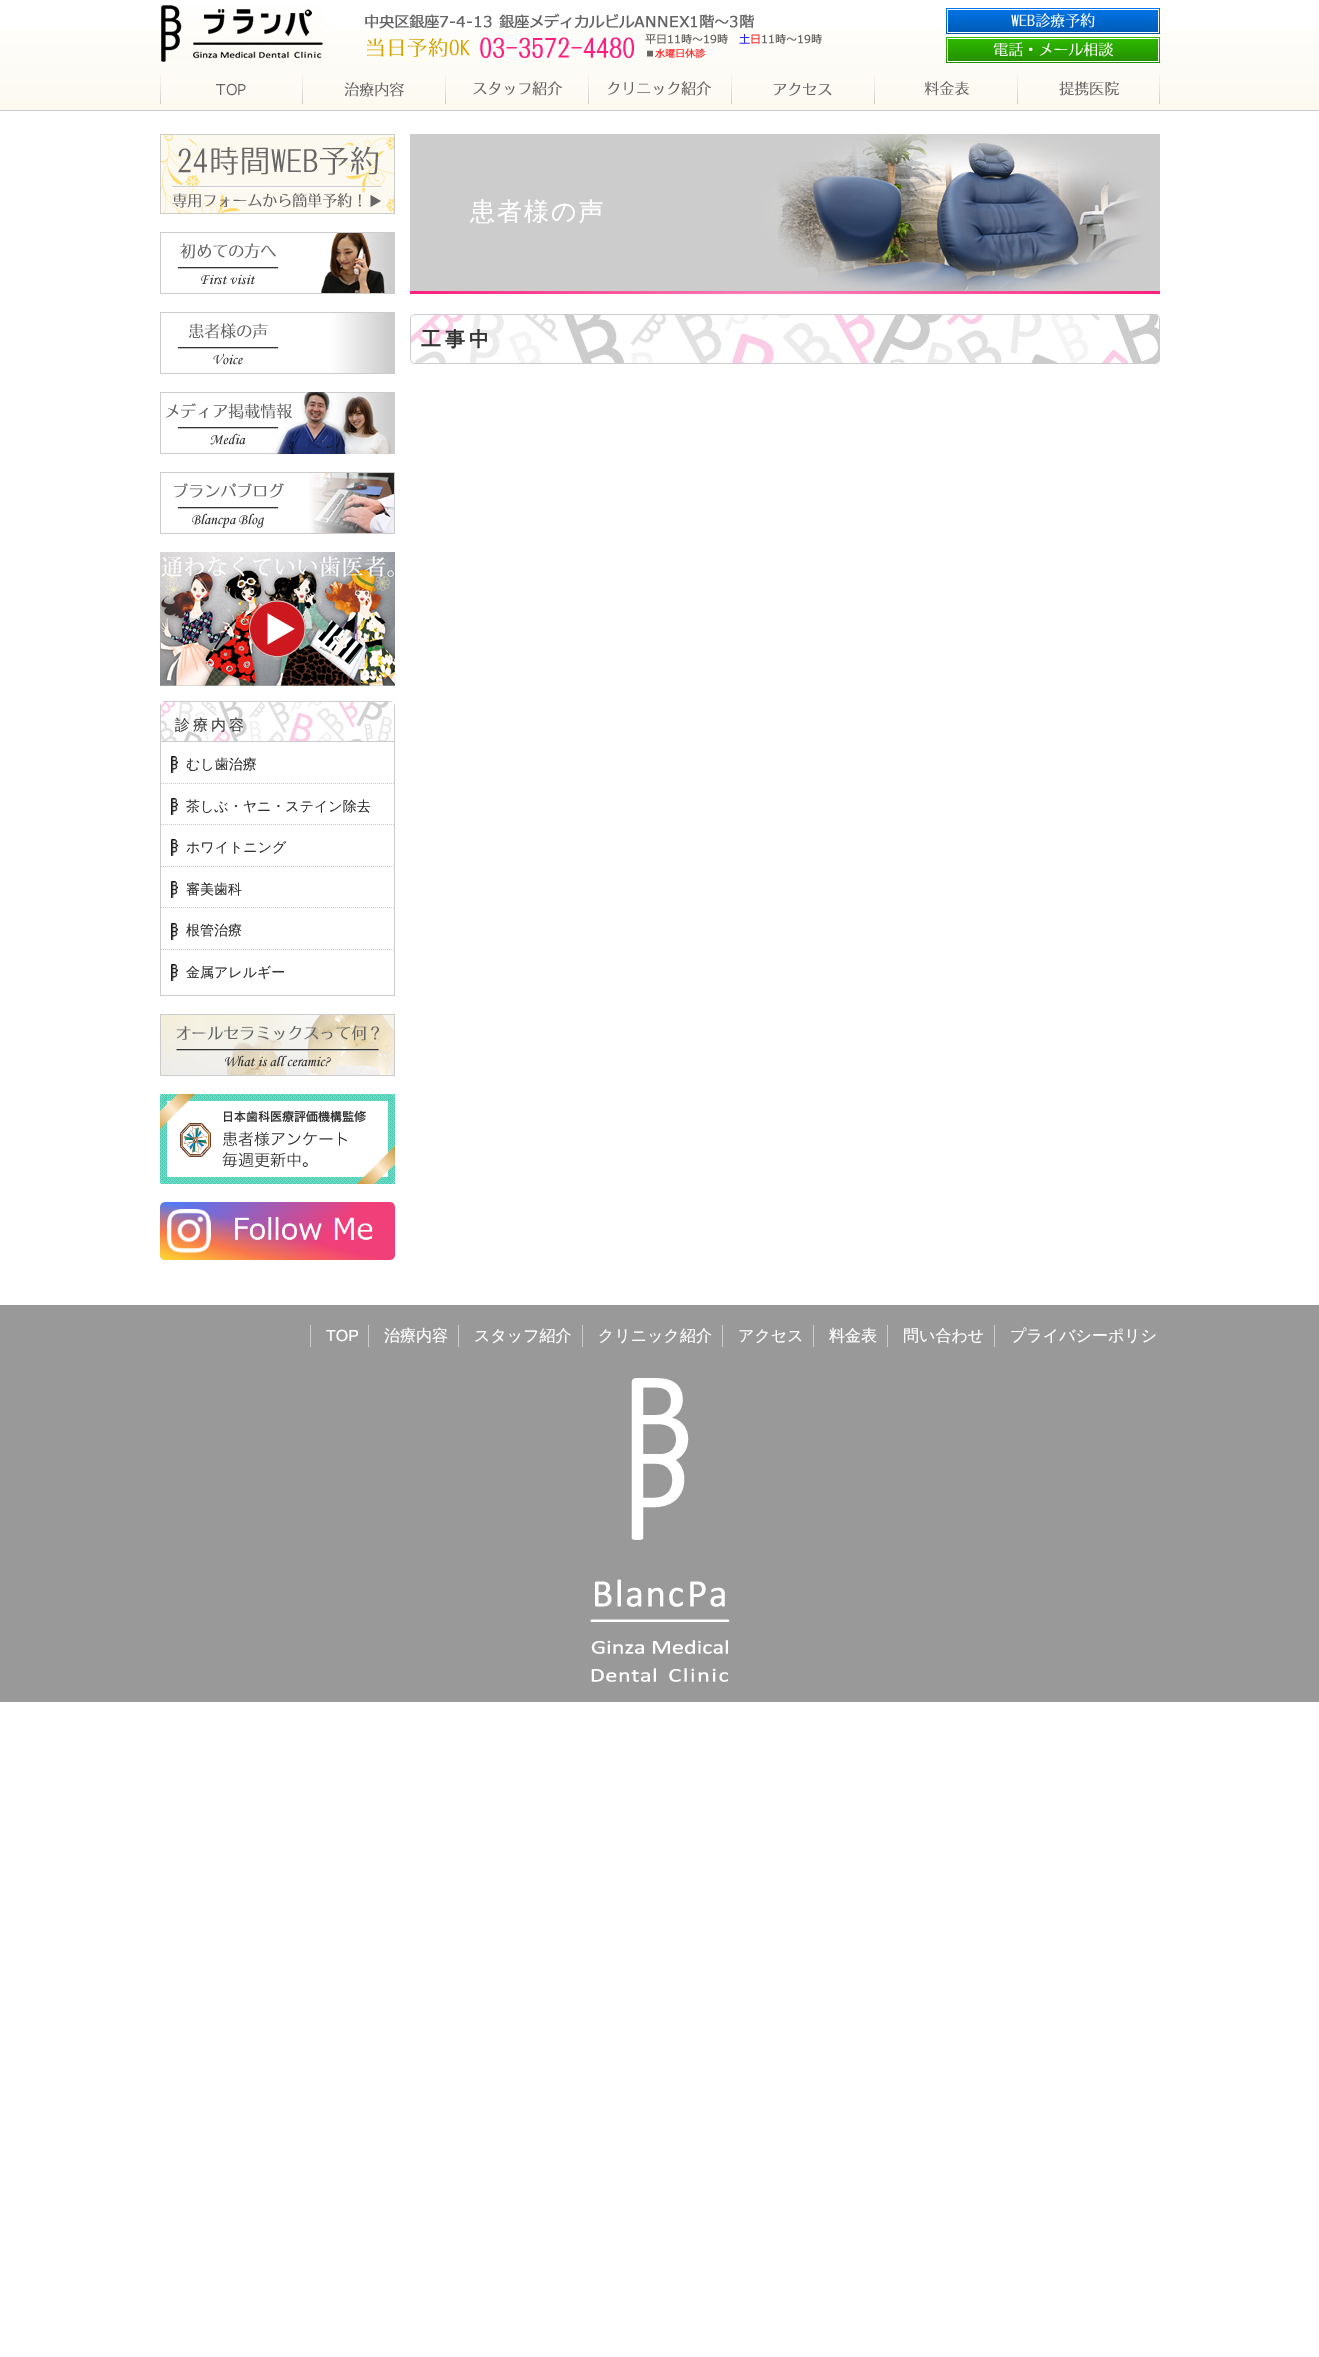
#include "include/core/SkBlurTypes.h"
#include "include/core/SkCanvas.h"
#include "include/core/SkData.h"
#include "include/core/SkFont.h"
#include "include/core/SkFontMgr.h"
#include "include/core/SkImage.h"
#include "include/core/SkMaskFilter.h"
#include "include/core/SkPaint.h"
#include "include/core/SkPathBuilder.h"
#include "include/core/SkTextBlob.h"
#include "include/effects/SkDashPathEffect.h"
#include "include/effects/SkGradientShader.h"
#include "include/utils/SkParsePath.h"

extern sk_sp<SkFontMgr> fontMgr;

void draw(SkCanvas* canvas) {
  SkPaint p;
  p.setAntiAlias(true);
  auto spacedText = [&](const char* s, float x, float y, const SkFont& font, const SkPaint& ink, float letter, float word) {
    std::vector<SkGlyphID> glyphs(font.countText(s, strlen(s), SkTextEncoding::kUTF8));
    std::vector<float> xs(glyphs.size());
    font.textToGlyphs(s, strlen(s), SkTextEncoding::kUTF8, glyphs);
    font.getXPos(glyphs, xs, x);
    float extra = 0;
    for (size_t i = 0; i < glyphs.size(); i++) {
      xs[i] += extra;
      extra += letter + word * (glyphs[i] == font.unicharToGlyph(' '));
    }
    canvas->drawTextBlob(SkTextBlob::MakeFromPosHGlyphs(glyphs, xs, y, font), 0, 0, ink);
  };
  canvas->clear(SK_ColorWHITE);
  canvas->drawImageRect(SkImages::DeferredFromEncodedData(SkData::MakeFromFileName("images/1.png")), SkRect::MakeLTRB(0, 30, 1319, 110), SkSamplingOptions());
  p.setColor(SkColorSetRGB(204, 204, 204));
  canvas->drawRect(SkRect::MakeLTRB(0, 110, 1319, 111), p);
  canvas->drawImageRect(SkImages::DeferredFromEncodedData(SkData::MakeFromFileName("images/2.png")), SkRect::MakeLTRB(160, 5, 324, 62), SkSamplingOptions());
  canvas->drawImageRect(SkImages::DeferredFromEncodedData(SkData::MakeFromFileName("images/3.png")), SkRect::MakeLTRB(365, 13, 754, 29), SkSamplingOptions());
  canvas->drawImageRect(SkImages::DeferredFromEncodedData(SkData::MakeFromFileName("images/4.png")), SkRect::MakeLTRB(367, 37, 634, 58), SkSamplingOptions());
  canvas->drawImageRect(SkImages::DeferredFromEncodedData(SkData::MakeFromFileName("images/5.png")), SkRect::MakeLTRB(645, 34, 822, 58), SkSamplingOptions());
  canvas->drawImageRect(SkImages::DeferredFromEncodedData(SkData::MakeFromFileName("images/6.png")), SkRect::MakeLTRB(946, 8, 1160, 34), SkSamplingOptions());
  canvas->drawImageRect(SkImages::DeferredFromEncodedData(SkData::MakeFromFileName("images/7.png")), SkRect::MakeLTRB(946, 37, 1160, 63), SkSamplingOptions());
  canvas->drawImageRect(SkImages::DeferredFromEncodedData(SkData::MakeFromFileName("images/8.png")), SkRect::MakeLTRB(160, 73, 246, 104), SkSamplingOptions());
  canvas->drawImageRect(SkImages::DeferredFromEncodedData(SkData::MakeFromFileName("images/9.png")), SkRect::MakeLTRB(302, 73, 404, 104), SkSamplingOptions());
  canvas->drawImageRect(SkImages::DeferredFromEncodedData(SkData::MakeFromFileName("images/10.png")), SkRect::MakeLTRB(445, 73, 562, 104), SkSamplingOptions());
  canvas->drawImageRect(SkImages::DeferredFromEncodedData(SkData::MakeFromFileName("images/11.png")), SkRect::MakeLTRB(588, 73, 711, 104), SkSamplingOptions());
  canvas->drawImageRect(SkImages::DeferredFromEncodedData(SkData::MakeFromFileName("images/12.png")), SkRect::MakeLTRB(731, 73, 832, 104), SkSamplingOptions());
  canvas->drawImageRect(SkImages::DeferredFromEncodedData(SkData::MakeFromFileName("images/13.png")), SkRect::MakeLTRB(874, 73, 969, 104), SkSamplingOptions());
  canvas->drawImageRect(SkImages::DeferredFromEncodedData(SkData::MakeFromFileName("images/14.png")), SkRect::MakeLTRB(1017, 73, 1160, 104), SkSamplingOptions());
  canvas->drawImageRect(SkImages::DeferredFromEncodedData(SkData::MakeFromFileName("images/15.png")), SkRect::MakeLTRB(410, 134, 1160, 294), SkSamplingOptions());
  canvas->drawImageRect(SkImages::DeferredFromEncodedData(SkData::MakeFromFileName("images/16.png")), SkRect::MakeLTRB(411, 314, 1160, 364), SkSamplingOptions());
  p.setStyle(SkPaint::kStroke_Style);
  p.setStrokeWidth(1);
  canvas->drawRoundRect(SkRect::MakeLTRB(410.5f, 314.5f, 1159.5f, 363.5f), 4.5f, 4.5f, p);
  canvas->drawImageRect(SkImages::DeferredFromEncodedData(SkData::MakeFromFileName("images/17.png")), SkRect::MakeLTRB(160, 134, 395, 214), SkSamplingOptions());
  canvas->drawImageRect(SkImages::DeferredFromEncodedData(SkData::MakeFromFileName("images/18.png")), SkRect::MakeLTRB(160, 232, 395, 294), SkSamplingOptions());
  canvas->drawImageRect(SkImages::DeferredFromEncodedData(SkData::MakeFromFileName("images/19.png")), SkRect::MakeLTRB(160, 312, 395, 374), SkSamplingOptions());
  canvas->drawImageRect(SkImages::DeferredFromEncodedData(SkData::MakeFromFileName("images/20.png")), SkRect::MakeLTRB(160, 392, 395, 454), SkSamplingOptions());
  canvas->drawImageRect(SkImages::DeferredFromEncodedData(SkData::MakeFromFileName("images/21.png")), SkRect::MakeLTRB(160, 472, 395, 534), SkSamplingOptions());
  canvas->drawImageRect(SkImages::DeferredFromEncodedData(SkData::MakeFromFileName("images/22.png")), SkRect::MakeLTRB(160, 552, 395, 686), SkSamplingOptions());
  canvas->drawImageRect(SkImages::DeferredFromEncodedData(SkData::MakeFromFileName("images/23.png")), SkRect::MakeLTRB(160, 701, 395, 741), SkSamplingOptions());
  canvas->drawRect(SkRect::MakeLTRB(160.5f, 741.5f, 394.5f, 995.5f), p);
  p.setPathEffect(SkDashPathEffect::Make({{1, 1}}, 0));
  canvas->drawPath(SkPathBuilder().moveTo(161, 783.5f).lineTo(394, 783.5f).detach(), p);
  p.setPathEffect(nullptr);
  canvas->drawImageRect(SkImages::DeferredFromEncodedData(SkData::MakeFromFileName("images/24.png")), SkRect::MakeLTRB(171, 756, 178, 773), SkSamplingOptions());
  p.setPathEffect(SkDashPathEffect::Make({{1, 1}}, 0));
  canvas->drawPath(SkPathBuilder().moveTo(161, 824.5f).lineTo(394, 824.5f).detach(), p);
  p.setPathEffect(nullptr);
  canvas->drawImageRect(SkImages::DeferredFromEncodedData(SkData::MakeFromFileName("images/24.png")), SkRect::MakeLTRB(171, 798, 178, 815), SkSamplingOptions());
  p.setPathEffect(SkDashPathEffect::Make({{1, 1}}, 0));
  canvas->drawPath(SkPathBuilder().moveTo(161, 866.5f).lineTo(394, 866.5f).detach(), p);
  p.setPathEffect(nullptr);
  canvas->drawImageRect(SkImages::DeferredFromEncodedData(SkData::MakeFromFileName("images/24.png")), SkRect::MakeLTRB(171, 839, 178, 856), SkSamplingOptions());
  p.setPathEffect(SkDashPathEffect::Make({{1, 1}}, 0));
  canvas->drawPath(SkPathBuilder().moveTo(161, 907.5f).lineTo(394, 907.5f).detach(), p);
  p.setPathEffect(nullptr);
  canvas->drawImageRect(SkImages::DeferredFromEncodedData(SkData::MakeFromFileName("images/24.png")), SkRect::MakeLTRB(171, 881, 178, 898), SkSamplingOptions());
  p.setPathEffect(SkDashPathEffect::Make({{1, 1}}, 0));
  canvas->drawPath(SkPathBuilder().moveTo(161, 949.5f).lineTo(394, 949.5f).detach(), p);
  p.setPathEffect(nullptr);
  canvas->drawImageRect(SkImages::DeferredFromEncodedData(SkData::MakeFromFileName("images/24.png")), SkRect::MakeLTRB(171, 923, 178, 940), SkSamplingOptions());
  canvas->drawImageRect(SkImages::DeferredFromEncodedData(SkData::MakeFromFileName("images/24.png")), SkRect::MakeLTRB(171, 964, 178, 981), SkSamplingOptions());
  canvas->drawImageRect(SkImages::DeferredFromEncodedData(SkData::MakeFromFileName("images/25.png")), SkRect::MakeLTRB(160, 1014, 395, 1076), SkSamplingOptions());
  canvas->drawImageRect(SkImages::DeferredFromEncodedData(SkData::MakeFromFileName("images/26.png")), SkRect::MakeLTRB(160, 1094, 395, 1184), SkSamplingOptions());
  canvas->drawImageRect(SkImages::DeferredFromEncodedData(SkData::MakeFromFileName("images/27.png")), SkRect::MakeLTRB(160, 1202, 395, 1260), SkSamplingOptions());
  p.setStyle(SkPaint::kFill_Style);
  p.setColor(SkColorSetRGB(153, 153, 153));
  canvas->drawRect(SkRect::MakeLTRB(0, 1305, 1319, 1702), p);
  p.setColor(SkColorSetRGB(204, 204, 204));
  canvas->drawRect(SkRect::MakeLTRB(310, 1325, 311, 1347), p);
  canvas->drawRect(SkRect::MakeLTRB(368, 1325, 369, 1347), p);
  canvas->drawRect(SkRect::MakeLTRB(458, 1325, 459, 1347), p);
  canvas->drawRect(SkRect::MakeLTRB(582, 1325, 583, 1347), p);
  canvas->drawRect(SkRect::MakeLTRB(722, 1325, 723, 1347), p);
  canvas->drawRect(SkRect::MakeLTRB(813, 1325, 814, 1347), p);
  canvas->drawRect(SkRect::MakeLTRB(887, 1325, 888, 1347), p);
  canvas->drawRect(SkRect::MakeLTRB(994, 1325, 995, 1347), p);
  canvas->drawImageRect(SkImages::DeferredFromEncodedData(SkData::MakeFromFileName("images/28.png")), SkRect::MakeLTRB(590, 1378, 730, 1682), SkSamplingOptions());
  SkFont font1(fontMgr->matchFamilyStyle("WenQuanYi Zen Hei", SkFontStyle(500, SkFontStyle::kNormal_Width, SkFontStyle::kUpright_Slant)), 25);
  font1.setSubpixel(true);
  p.setColor(SK_ColorWHITE);
  spacedText("患者様の声", 470, 220, font1, p, 2, 0);
  SkFont font2(fontMgr->matchFamilyStyle("WenQuanYi Zen Hei", SkFontStyle::Bold()), 20);
  font2.setSubpixel(true);
  p.setColor(SkColorSetRGB(51, 51, 51));
  spacedText("工事中", 421, 346, font2, p, 4, 0);
  SkFont font3(fontMgr->matchFamilyStyle("WenQuanYi Zen Hei", SkFontStyle(500, SkFontStyle::kNormal_Width, SkFontStyle::kUpright_Slant)), 15);
  font3.setSubpixel(true);
  p.setColor(SkColorSetRGB(63, 63, 63));
  spacedText("診療内容", 175, 730, font3, p, 3, 0);
  SkFont font4(fontMgr->matchFamilyStyle("WenQuanYi Zen Hei", SkFontStyle(500, SkFontStyle::kNormal_Width, SkFontStyle::kUpright_Slant)), 14);
  font4.setSubpixel(true);
  p.setColor(SkColorSetRGB(51, 51, 51));
  canvas->drawString("むし歯治療", 186, 769, font4, p);
  canvas->drawString("茶しぶ・ヤニ・ステイン除去", 186, 811, font4, p);
  canvas->drawString("ホワイトニング", 186, 852, font4, p);
  canvas->drawString("審美歯科", 186, 894, font4, p);
  canvas->drawString("根管治療", 186, 935, font4, p);
  canvas->drawString("金属アレルギー", 186, 977, font4, p);
  SkFont font5(fontMgr->matchFamilyStyle("Liberation Sans", SkFontStyle::Normal()), 16);
  font5.setSubpixel(true);
  p.setColor(SK_ColorWHITE);
  canvas->drawString("TOP", 326, 1341, font5, p);
  SkFont font6(fontMgr->matchFamilyStyle("WenQuanYi Zen Hei", SkFontStyle(500, SkFontStyle::kNormal_Width, SkFontStyle::kUpright_Slant)), 16);
  font6.setSubpixel(true);
  canvas->drawString("治療内容", 384, 1341, font6, p);
  canvas->drawString("スタッフ紹介", 474, 1341, font6, p);
  canvas->drawString("クリニック紹介", 598, 1341, font6, p);
  canvas->drawString("アクセス", 738, 1341, font6, p);
  canvas->drawString("料金表", 829, 1341, font6, p);
  canvas->drawString("問い合わせ", 903, 1341, font6, p);
  canvas->drawString("プライバシーポリシ", 1010, 1341, font6, p);
}
